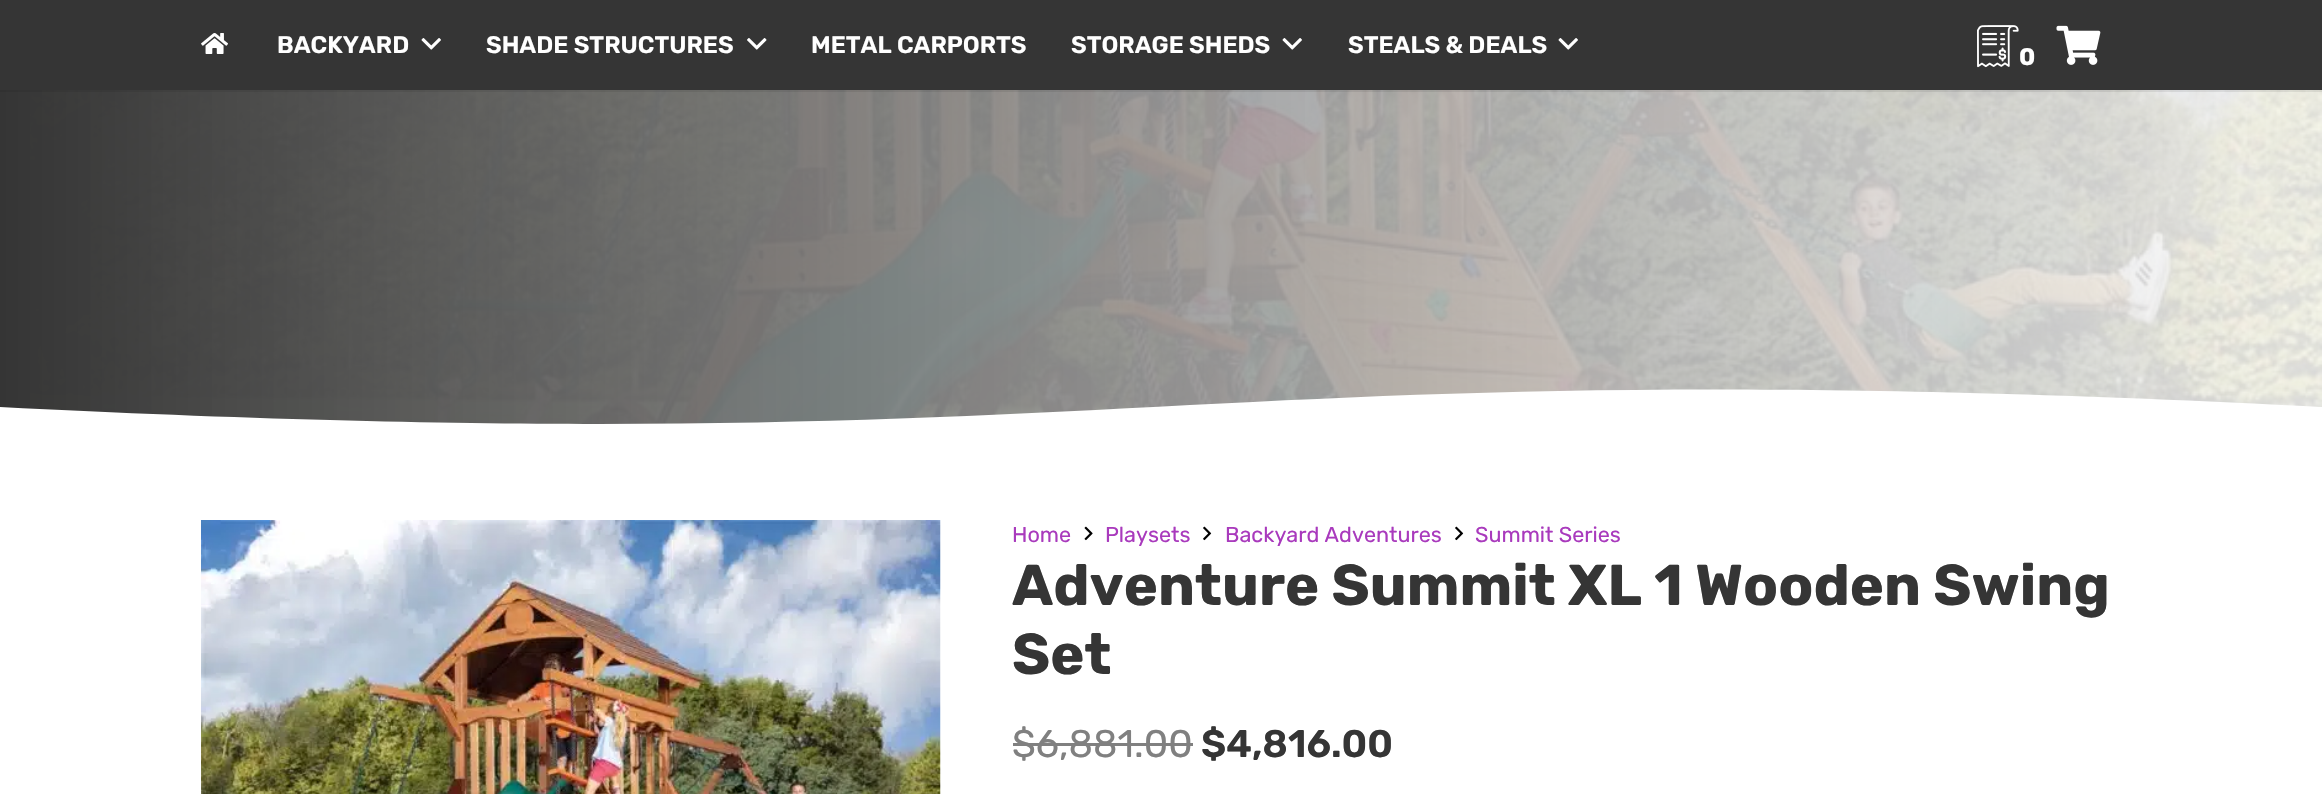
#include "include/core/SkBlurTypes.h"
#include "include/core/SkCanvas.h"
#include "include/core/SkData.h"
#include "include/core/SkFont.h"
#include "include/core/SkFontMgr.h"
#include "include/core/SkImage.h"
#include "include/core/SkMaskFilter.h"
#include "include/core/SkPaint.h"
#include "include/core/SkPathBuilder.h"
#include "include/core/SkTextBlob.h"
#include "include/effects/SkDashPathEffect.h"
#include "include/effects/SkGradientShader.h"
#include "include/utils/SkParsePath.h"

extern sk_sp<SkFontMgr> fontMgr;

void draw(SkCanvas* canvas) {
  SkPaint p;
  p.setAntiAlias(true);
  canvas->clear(SK_ColorWHITE);
  canvas->drawImageRect(SkImages::DeferredFromEncodedData(SkData::MakeFromFileName("images/6.png")), SkRect::MakeLTRB(0, 90, 2322, 424), SkSamplingOptions());
  p.setColor(SkColorSetARGB(20, 0, 0, 0));
  canvas->drawRect(SkRect::MakeLTRB(0, 90, 2322, 92), p);
  p.setColor(SkColorSetRGB(53, 53, 53));
  canvas->drawRect(SkRect::MakeLTRB(0, 0, 2322, 90), p);
  canvas->drawImageRect(SkImages::DeferredFromEncodedData(SkData::MakeFromFileName("images/1.png")), SkRect::MakeLTRB(201, 33, 228, 54), SkSamplingOptions());
  canvas->drawImageRect(SkImages::DeferredFromEncodedData(SkData::MakeFromFileName("images/2.png")), SkRect::MakeLTRB(421, 38, 441, 50), SkSamplingOptions());
  canvas->drawImageRect(SkImages::DeferredFromEncodedData(SkData::MakeFromFileName("images/3.png")), SkRect::MakeLTRB(747, 38, 767, 50), SkSamplingOptions());
  canvas->drawImageRect(SkImages::DeferredFromEncodedData(SkData::MakeFromFileName("images/2.png")), SkRect::MakeLTRB(1282, 38, 1302, 50), SkSamplingOptions());
  canvas->drawImageRect(SkImages::DeferredFromEncodedData(SkData::MakeFromFileName("images/2.png")), SkRect::MakeLTRB(1558, 38, 1578, 50), SkSamplingOptions());
  canvas->drawImageRect(SkImages::DeferredFromEncodedData(SkData::MakeFromFileName("images/4.png")), SkRect::MakeLTRB(1977, 25, 2019, 68), SkSamplingOptions());
  canvas->drawImageRect(SkImages::DeferredFromEncodedData(SkData::MakeFromFileName("images/5.png")), SkRect::MakeLTRB(2056, 25, 2101, 65), SkSamplingOptions());
  canvas->save();
  canvas->clipRect(SkRect::MakeLTRB(0, 387, 2322, 426));
  p.setColor(SK_ColorWHITE);
  canvas->drawPath(SkPathBuilder().moveTo(2322, 407).cubicTo(1161, 347, 1161, 466, 0, 407).lineTo(0, 427).lineTo(2322, 427).close().detach(), p);
  canvas->restore();
  canvas->drawImageRect(SkImages::DeferredFromEncodedData(SkData::MakeFromFileName("images/7.png")), SkRect::MakeLTRB(201, 520, 941, 794), SkSamplingOptions());
  p.setColor(SkColorSetARGB(128, 255, 255, 255));
  canvas->drawRect(SkRect::MakeLTRB(940, 520, 941, 794), p);
  canvas->drawImageRect(SkImages::DeferredFromEncodedData(SkData::MakeFromFileName("images/8.png")), SkRect::MakeLTRB(1084, 526, 1093, 541), SkSamplingOptions());
  canvas->drawImageRect(SkImages::DeferredFromEncodedData(SkData::MakeFromFileName("images/9.png")), SkRect::MakeLTRB(1203, 526, 1212, 541), SkSamplingOptions());
  canvas->drawImageRect(SkImages::DeferredFromEncodedData(SkData::MakeFromFileName("images/9.png")), SkRect::MakeLTRB(1455, 526, 1464, 541), SkSamplingOptions());
  p.setColor(SkColorSetRGB(128, 128, 128));
  canvas->drawRect(SkRect::MakeLTRB(1013, 743, 1193, 746), p);
  SkFont font1(fontMgr->matchFamilyStyle("Rubik", SkFontStyle(600, SkFontStyle::kNormal_Width, SkFontStyle::kUpright_Slant)), 24);
  font1.setSubpixel(true);
  p.setColor(SK_ColorWHITE);
  canvas->drawString("BACKYARD", 277, 53, font1, p);
  canvas->drawString("SHADE STRUCTURES", 486, 53, font1, p);
  canvas->drawString("METAL CARPORTS", 811, 53, font1, p);
  canvas->drawString("STORAGE SHEDS", 1071, 53, font1, p);
  canvas->drawString("STEALS & DEALS", 1348, 53, font1, p);
  SkFont font2(fontMgr->matchFamilyStyle("Rubik", SkFontStyle::Bold()), 24);
  font2.setSubpixel(true);
  canvas->drawString("0", 2019, 65, font2, p);
  SkFont font3(fontMgr->matchFamilyStyle("Rubik", SkFontStyle::Normal()), 21.6f);
  font3.setSubpixel(true);
  p.setColor(SkColorSetRGB(169, 58, 189));
  canvas->drawString("Home", 1012, 542, font3, p);
  canvas->drawString("Playsets", 1105, 542, font3, p);
  canvas->drawString("Backyard Adventures", 1225, 542, font3, p);
  canvas->drawString("Summit Series", 1475, 542, font3, p);
  SkFont font4(fontMgr->matchFamilyStyle("Rubik", SkFontStyle::Bold()), 57.6f);
  font4.setSubpixel(true);
  p.setColor(SkColorSetRGB(53, 53, 53));
  canvas->drawString("Adventure Summit XL 1 Wooden Swing", 1012, 605, font4, p);
  canvas->drawString("Set", 1012, 674, font4, p);
  SkFont font5(fontMgr->matchFamilyStyle("Rubik", SkFontStyle::Normal()), 38.5f);
  font5.setSubpixel(true);
  p.setColor(SkColorSetRGB(128, 128, 128));
  canvas->drawString("$6,881.00", 1012, 757, font5, p);
  SkFont font6(fontMgr->matchFamilyStyle("Rubik", SkFontStyle(600, SkFontStyle::kNormal_Width, SkFontStyle::kUpright_Slant)), 38.5f);
  font6.setSubpixel(true);
  p.setColor(SkColorSetRGB(53, 53, 53));
  canvas->drawString("$4,816.00", 1201, 757, font6, p);
}
